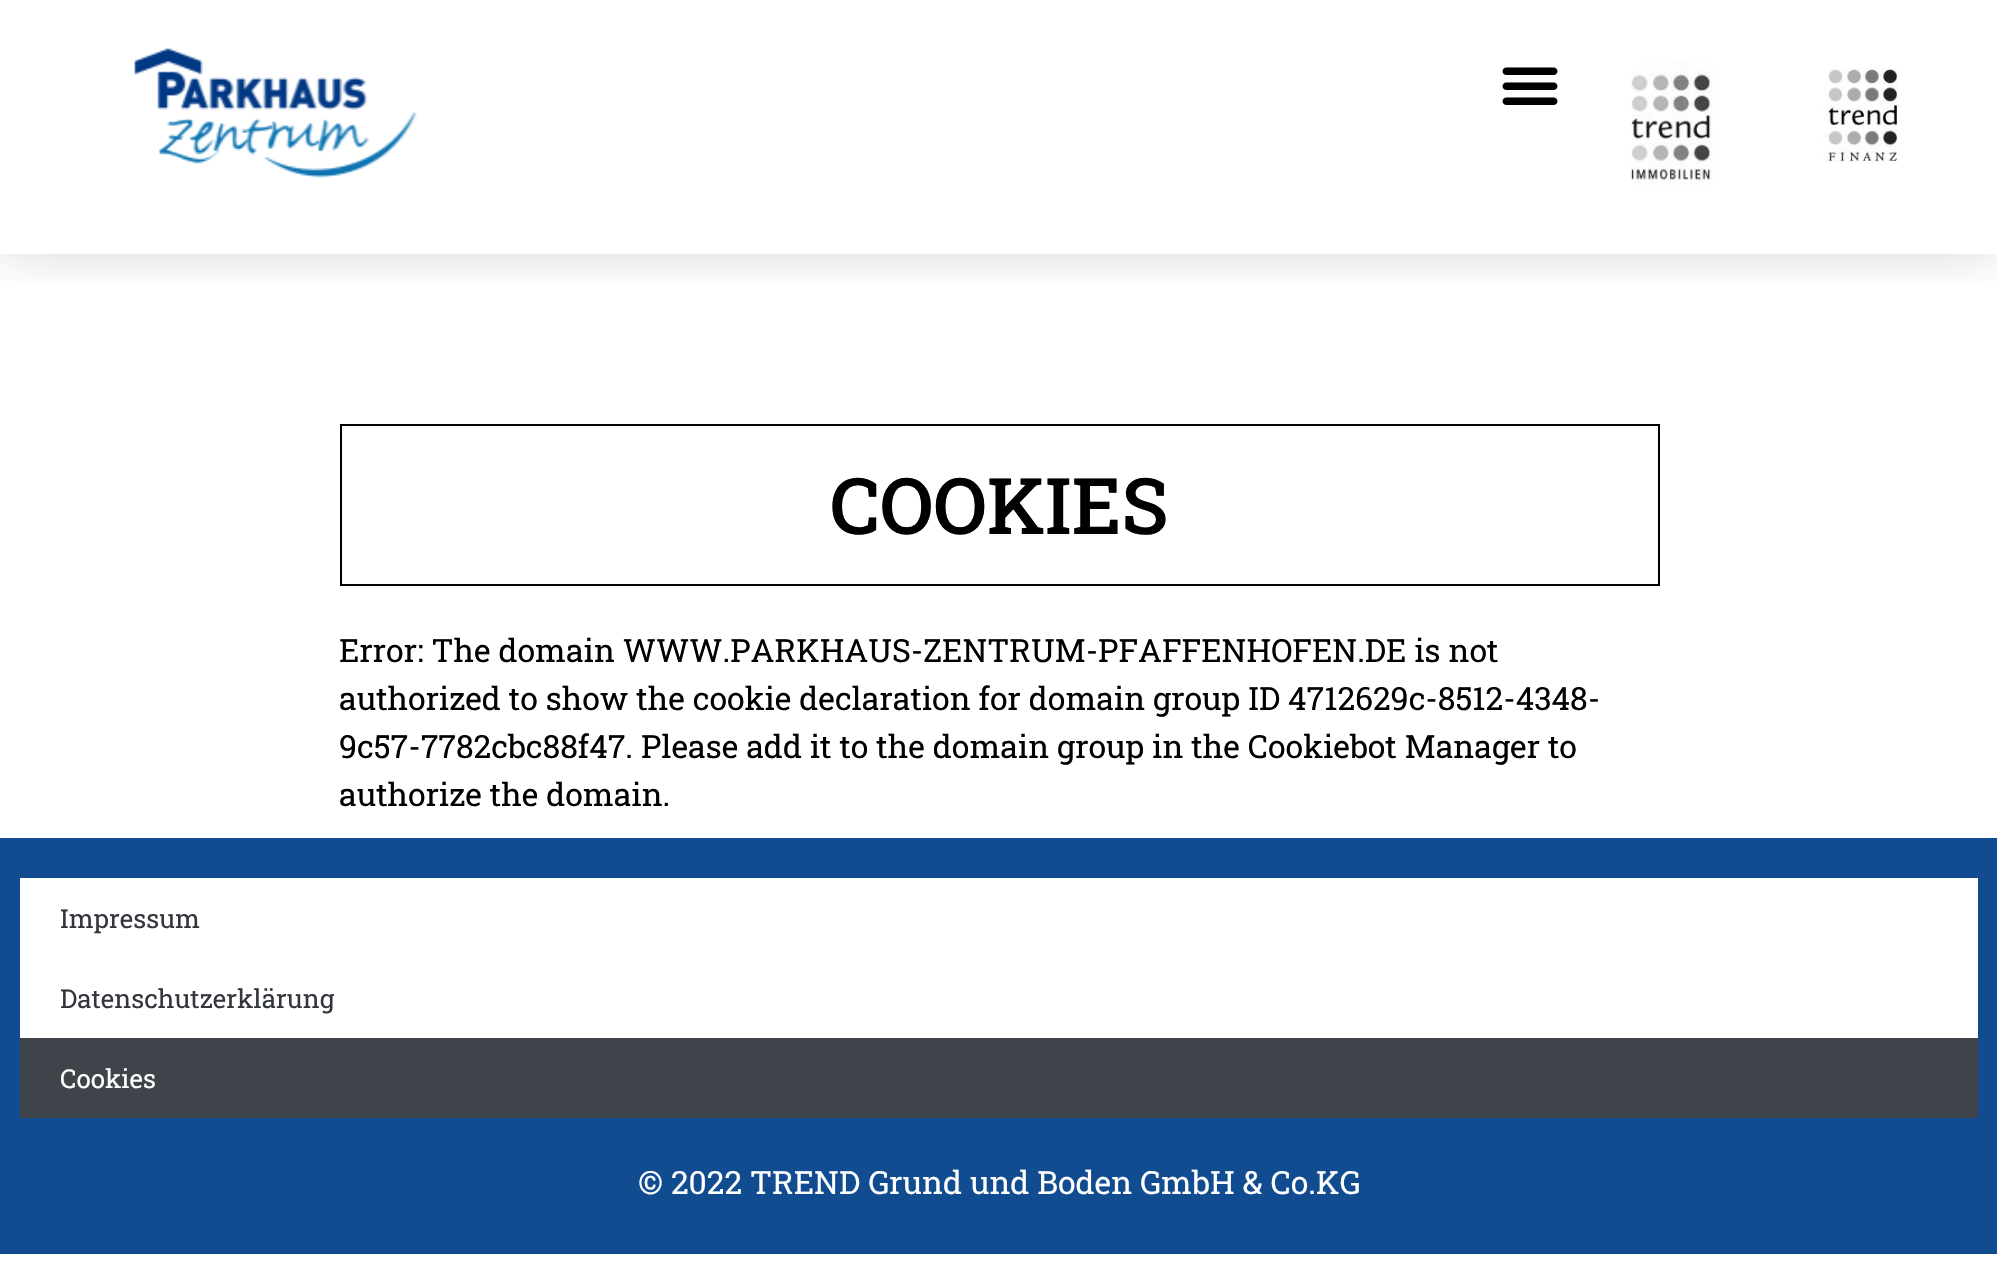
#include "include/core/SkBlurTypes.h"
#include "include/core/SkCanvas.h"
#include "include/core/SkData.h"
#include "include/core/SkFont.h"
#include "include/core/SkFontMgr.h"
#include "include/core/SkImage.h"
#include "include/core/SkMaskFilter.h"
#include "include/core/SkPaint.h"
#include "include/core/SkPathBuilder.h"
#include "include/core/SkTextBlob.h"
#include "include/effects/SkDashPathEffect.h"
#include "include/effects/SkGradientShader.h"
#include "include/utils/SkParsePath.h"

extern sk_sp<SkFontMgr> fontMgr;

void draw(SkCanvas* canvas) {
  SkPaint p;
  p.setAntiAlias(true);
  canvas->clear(SK_ColorWHITE);
  canvas->save();
  canvas->clipRect(SkRect::MakeLTRB(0, 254, 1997, 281));
  p.setColor(SkColorSetARGB(38, 0, 0, 0));
  p.setMaskFilter(SkMaskFilter::MakeBlur(kNormal_SkBlurStyle, 24));
  canvas->drawRect(SkRect::MakeLTRB(0, 0, 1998, 254), p);
  p.setMaskFilter(nullptr);
  canvas->restore();
  canvas->drawImageRect(SkImages::DeferredFromEncodedData(SkData::MakeFromFileName("images/1.png")), SkRect::MakeLTRB(134, 48, 417, 178), SkSamplingOptions());
  canvas->drawImageRect(SkImages::DeferredFromEncodedData(SkData::MakeFromFileName("images/2.png")), SkRect::MakeLTRB(1502, 67, 1558, 105), SkSamplingOptions());
  canvas->drawImageRect(SkImages::DeferredFromEncodedData(SkData::MakeFromFileName("images/3.png")), SkRect::MakeLTRB(1630, 60, 1713, 185), SkSamplingOptions());
  canvas->drawImageRect(SkImages::DeferredFromEncodedData(SkData::MakeFromFileName("images/4.png")), SkRect::MakeLTRB(1823, 68, 1898, 163), SkSamplingOptions());
  p.setStyle(SkPaint::kStroke_Style);
  p.setStrokeWidth(2);
  p.setColor(SK_ColorBLACK);
  canvas->drawRect(SkRect::MakeLTRB(341, 425, 1659, 585), p);
  p.setStyle(SkPaint::kFill_Style);
  p.setColor(SkColorSetRGB(17, 76, 144));
  canvas->drawRect(SkRect::MakeLTRB(0, 838, 1997, 1254), p);
  p.setColor(SK_ColorWHITE);
  canvas->drawRect(SkRect::MakeLTRB(20, 878, 1978, 1038), p);
  p.setColor(SkColorSetRGB(63, 68, 75));
  canvas->drawRect(SkRect::MakeLTRB(20, 1038, 1978, 1118), p);
  SkFont font1(fontMgr->matchFamilyStyle("Roboto Slab", SkFontStyle(500, SkFontStyle::kNormal_Width, SkFontStyle::kUpright_Slant)), 78);
  font1.setSubpixel(true);
  p.setColor(SK_ColorBLACK);
  canvas->drawString("COOKIES", 830, 534, font1, p);
  SkFont font2(fontMgr->matchFamilyStyle("Roboto Slab", SkFontStyle::Normal()), 32);
  font2.setSubpixel(true);
  canvas->drawString("Error: The domain WWW.PARKHAUS-ZENTRUM-PFAFFENHOFEN.DE is not", 339, 662, font2, p);
  canvas->drawString("authorized to show the cookie declaration for domain group ID 4712629c-8512-4348-", 339, 710, font2, p);
  canvas->drawString("9c57-7782cbc88f47. Please add it to the domain group in the Cookiebot Manager to", 339, 758, font2, p);
  canvas->drawString("authorize the domain.", 339, 806, font2, p);
  SkFont font3(fontMgr->matchFamilyStyle("Roboto Slab", SkFontStyle::Normal()), 26);
  font3.setSubpixel(true);
  p.setColor(SkColorSetRGB(51, 55, 61));
  canvas->drawString("Impressum", 60, 928, font3, p);
  canvas->drawString("Datenschutzerklärung", 60, 1008, font3, p);
  p.setColor(SK_ColorWHITE);
  canvas->drawString("Cookies", 60, 1088, font3, p);
  canvas->drawString("© 2022 TREND Grund und Boden GmbH & Co.KG", 638, 1194, font2, p);
}
